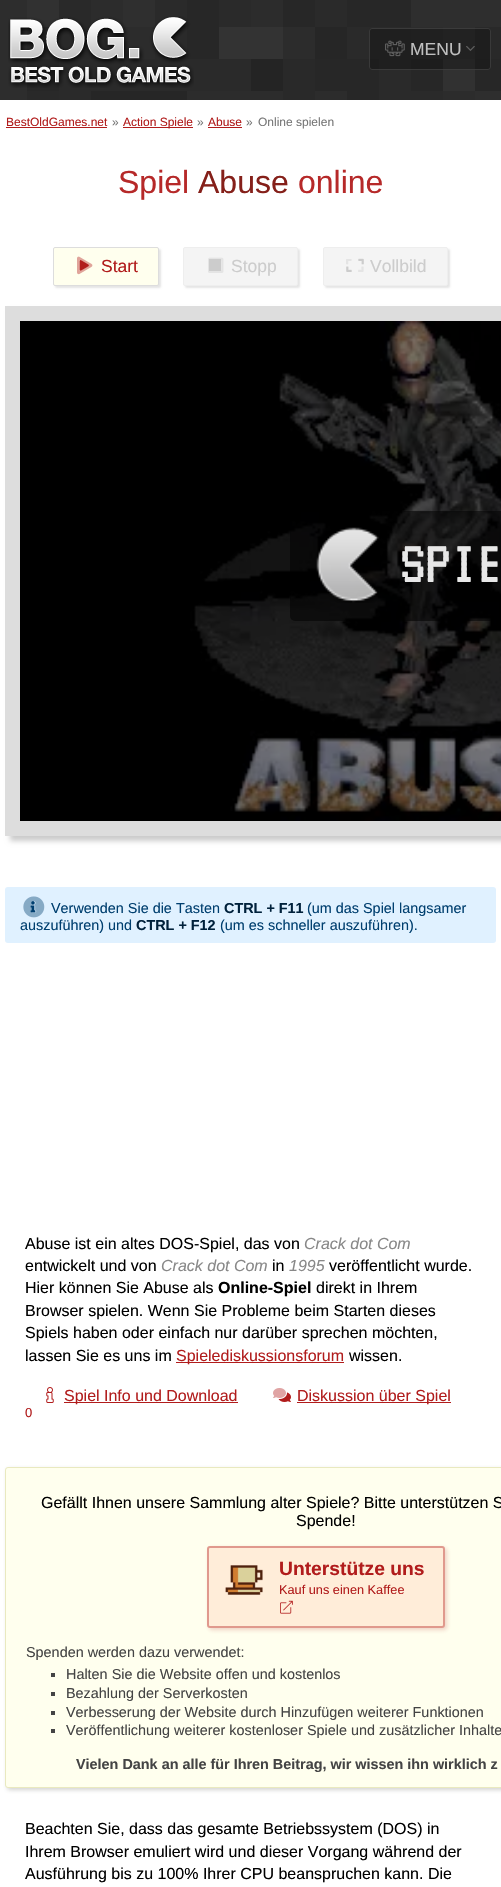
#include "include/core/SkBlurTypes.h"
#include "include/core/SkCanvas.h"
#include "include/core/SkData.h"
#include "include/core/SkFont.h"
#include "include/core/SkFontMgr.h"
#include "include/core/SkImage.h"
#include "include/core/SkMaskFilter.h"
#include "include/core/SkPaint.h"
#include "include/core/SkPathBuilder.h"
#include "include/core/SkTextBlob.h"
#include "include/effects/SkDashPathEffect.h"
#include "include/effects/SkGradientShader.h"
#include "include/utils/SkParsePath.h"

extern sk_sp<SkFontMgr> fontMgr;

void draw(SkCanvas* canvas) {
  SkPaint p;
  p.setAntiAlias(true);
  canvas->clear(SkColorSetRGB(45, 45, 45));
  canvas->drawImageRect(SkImages::DeferredFromEncodedData(SkData::MakeFromFileName("images/1.png")), SkRect::MakeLTRB(27, 0, 501, 100), SkSamplingOptions());
  canvas->drawImageRect(SkImages::DeferredFromEncodedData(SkData::MakeFromFileName("images/2.png")), SkRect::MakeLTRB(8, 16, 194, 88), SkSamplingOptions());
  p.setColor(SK_ColorWHITE);
  canvas->drawRect(SkRect::MakeLTRB(0, 100, 501, 1887), p);
  p.setColor(SkColorSetARGB(71, 0, 0, 0));
  canvas->drawRoundRect(SkRect::MakeLTRB(369, 28, 491, 70), 3, 3, p);
  p.setStyle(SkPaint::kStroke_Style);
  p.setStrokeWidth(1);
  p.setColor(SkColorSetARGB(179, 68, 68, 68));
  canvas->drawRoundRect(SkRect::MakeLTRB(369.5f, 28.5f, 490.5f, 69.5f), 2.5f, 2.5f, p);
  canvas->drawImageRect(SkImages::DeferredFromEncodedData(SkData::MakeFromFileName("images/3.png")), SkRect::MakeLTRB(385, 40, 405, 57), SkSamplingOptions());
  canvas->drawImageRect(SkImages::DeferredFromEncodedData(SkData::MakeFromFileName("images/4.png")), SkRect::MakeLTRB(466, 46, 475, 51), SkSamplingOptions());
  p.setStyle(SkPaint::kFill_Style);
  p.setColor(SkColorSetRGB(177, 28, 28));
  canvas->drawRect(SkRect::MakeLTRB(6, 127, 107, 128), p);
  canvas->drawRect(SkRect::MakeLTRB(123, 127, 193, 128), p);
  canvas->drawRect(SkRect::MakeLTRB(208, 127, 242, 128), p);
  p.setColor(SkColorSetARGB(26, 0, 0, 0));
  p.setMaskFilter(SkMaskFilter::MakeBlur(kNormal_SkBlurStyle, 1));
  canvas->drawRoundRect(SkRect::MakeLTRB(55, 249, 161, 288), 2, 2, p);
  p.setMaskFilter(nullptr);
  p.setColor(SkColorSetRGB(255, 255, 238));
  canvas->drawRoundRect(SkRect::MakeLTRB(53.5f, 247.5f, 158.5f, 285.5f), 1.5f, 1.5f, p);
  p.setStyle(SkPaint::kStroke_Style);
  p.setColor(SkColorSetRGB(221, 221, 221));
  canvas->drawRoundRect(SkRect::MakeLTRB(53.5f, 247.5f, 158.5f, 285.5f), 1.5f, 1.5f, p);
  canvas->drawImageRect(SkImages::DeferredFromEncodedData(SkData::MakeFromFileName("images/6.png")), SkRect::MakeLTRB(79, 260, 89, 271), SkSamplingOptions());
  canvas->drawImageRect(SkImages::DeferredFromEncodedData(SkData::MakeFromFileName("images/5.png")), SkRect::MakeLTRB(77, 256, 93, 275), SkSamplingOptions());
  p.setStyle(SkPaint::kFill_Style);
  p.setColor(SkColorSetARGB(26, 0, 0, 0));
  p.setMaskFilter(SkMaskFilter::MakeBlur(kNormal_SkBlurStyle, 1));
  canvas->drawRoundRect(SkRect::MakeLTRB(185, 249, 300, 288), 2, 2, p);
  p.setMaskFilter(nullptr);
  p.setColor(SkColorSetRGB(244, 244, 244));
  canvas->drawRoundRect(SkRect::MakeLTRB(183.5f, 247.5f, 297.5f, 285.5f), 1.5f, 1.5f, p);
  p.setStyle(SkPaint::kStroke_Style);
  p.setColor(SkColorSetRGB(238, 238, 238));
  canvas->drawRoundRect(SkRect::MakeLTRB(183.5f, 247.5f, 297.5f, 285.5f), 1.5f, 1.5f, p);
  p.setStyle(SkPaint::kFill_Style);
  p.setColor(SkColorSetRGB(204, 204, 204));
  canvas->drawRect(SkRect::MakeLTRB(209, 259, 221, 271), p);
  canvas->drawImageRect(SkImages::DeferredFromEncodedData(SkData::MakeFromFileName("images/7.png")), SkRect::MakeLTRB(208, 257, 224, 273), SkSamplingOptions());
  p.setColor(SkColorSetARGB(26, 0, 0, 0));
  p.setMaskFilter(SkMaskFilter::MakeBlur(kNormal_SkBlurStyle, 1));
  canvas->drawRoundRect(SkRect::MakeLTRB(325, 249, 450, 288), 2, 2, p);
  p.setMaskFilter(nullptr);
  p.setColor(SkColorSetRGB(244, 244, 244));
  canvas->drawRoundRect(SkRect::MakeLTRB(323.5f, 247.5f, 447.5f, 285.5f), 1.5f, 1.5f, p);
  p.setStyle(SkPaint::kStroke_Style);
  p.setColor(SkColorSetRGB(238, 238, 238));
  canvas->drawRoundRect(SkRect::MakeLTRB(323.5f, 247.5f, 447.5f, 285.5f), 1.5f, 1.5f, p);
  canvas->drawImageRect(SkImages::DeferredFromEncodedData(SkData::MakeFromFileName("images/8.png")), SkRect::MakeLTRB(346, 258, 364, 272), SkSamplingOptions());
  canvas->drawImageRect(SkImages::DeferredFromEncodedData(SkData::MakeFromFileName("images/9.png")), SkRect::MakeLTRB(346, 259, 364, 272), SkSamplingOptions());
  p.setStyle(SkPaint::kFill_Style);
  p.setColor(SkColorSetARGB(51, 0, 0, 0));
  p.setMaskFilter(SkMaskFilter::MakeBlur(kNormal_SkBlurStyle, 2.5f));
  canvas->drawRect(SkRect::MakeLTRB(10, 311, 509, 841), p);
  p.setMaskFilter(nullptr);
  canvas->drawImageRect(SkImages::DeferredFromEncodedData(SkData::MakeFromFileName("images/10.png")), SkRect::MakeLTRB(20, 321, 501, 821), SkSamplingOptions());
  p.setStyle(SkPaint::kStroke_Style);
  p.setStrokeWidth(15);
  p.setColor(SkColorSetRGB(221, 221, 221));
  canvas->drawRect(SkRect::MakeLTRB(12.5f, 313.5f, 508.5f, 828.5f), p);
  p.setStyle(SkPaint::kFill_Style);
  p.setColor(SkColorSetARGB(138, 0, 0, 0));
  canvas->drawRoundRect(SkRect::MakeLTRB(290, 511, 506, 621), 5, 5, p);
  canvas->drawImageRect(SkImages::DeferredFromEncodedData(SkData::MakeFromFileName("images/11.png")), SkRect::MakeLTRB(316, 527, 379, 603), SkSamplingOptions());
  p.setColor(SkColorSetRGB(224, 241, 255));
  canvas->drawRoundRect(SkRect::MakeLTRB(5, 887, 496, 943), 3, 3, p);
  canvas->drawImageRect(SkImages::DeferredFromEncodedData(SkData::MakeFromFileName("images/13.png")), SkRect::MakeLTRB(30, 901, 36, 913), SkSamplingOptions());
  canvas->drawImageRect(SkImages::DeferredFromEncodedData(SkData::MakeFromFileName("images/12.png")), SkRect::MakeLTRB(23, 896, 45, 918), SkSamplingOptions());
  p.setColor(SkColorSetRGB(177, 28, 28));
  canvas->drawRect(SkRect::MakeLTRB(176, 1362, 344, 1363), p);
  canvas->drawImageRect(SkImages::DeferredFromEncodedData(SkData::MakeFromFileName("images/15.png")), SkRect::MakeLTRB(278, 1392, 291, 1402), SkSamplingOptions());
  canvas->drawImageRect(SkImages::DeferredFromEncodedData(SkData::MakeFromFileName("images/14.png")), SkRect::MakeLTRB(273, 1388, 286, 1398), SkSamplingOptions());
  canvas->drawRect(SkRect::MakeLTRB(297, 1402, 451, 1403), p);
  canvas->drawImageRect(SkImages::DeferredFromEncodedData(SkData::MakeFromFileName("images/16.png")), SkRect::MakeLTRB(46, 1387, 54, 1403), SkSamplingOptions());
  canvas->drawRect(SkRect::MakeLTRB(64, 1402, 238, 1403), p);
  p.setColor(SkColorSetARGB(64, 80, 80, 70));
  p.setMaskFilter(SkMaskFilter::MakeBlur(kNormal_SkBlurStyle, 2));
  canvas->drawRoundRect(SkRect::MakeLTRB(7, 1469, 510, 1790), 3, 3, p);
  p.setMaskFilter(nullptr);
  p.setColor(SkColorSetRGB(255, 255, 238));
  canvas->drawRoundRect(SkRect::MakeLTRB(5.5f, 1467.5f, 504.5f, 1787.5f), 2.5f, 2.5f, p);
  p.setStyle(SkPaint::kStroke_Style);
  p.setStrokeWidth(1);
  p.setColor(SkColorSetRGB(233, 233, 191));
  canvas->drawRoundRect(SkRect::MakeLTRB(5.5f, 1467.5f, 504.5f, 1787.5f), 2.5f, 2.5f, p);
  p.setStyle(SkPaint::kFill_Style);
  p.setColor(SkColorSetARGB(51, 177, 28, 28));
  p.setMaskFilter(SkMaskFilter::MakeBlur(kNormal_SkBlurStyle, 2));
  canvas->drawRoundRect(SkRect::MakeLTRB(209, 1548, 447, 1630), 3, 3, p);
  p.setMaskFilter(nullptr);
  p.setColor(SkColorSetRGB(255, 237, 217));
  canvas->drawRoundRect(SkRect::MakeLTRB(207, 1546, 445, 1628), 3, 3, p);
  p.setStyle(SkPaint::kStroke_Style);
  p.setStrokeWidth(2);
  p.setColor(SkColorSetARGB(102, 177, 28, 28));
  canvas->drawRoundRect(SkRect::MakeLTRB(208, 1547, 444, 1627), 2, 2, p);
  canvas->drawImageRect(SkImages::DeferredFromEncodedData(SkData::MakeFromFileName("images/17.png")), SkRect::MakeLTRB(225, 1565, 263, 1595), SkSamplingOptions());
  canvas->drawImageRect(SkImages::DeferredFromEncodedData(SkData::MakeFromFileName("images/18.png")), SkRect::MakeLTRB(280, 1600, 293, 1614), SkSamplingOptions());
  p.setStyle(SkPaint::kFill_Style);
  p.setColor(SkColorSetRGB(68, 68, 68));
  canvas->drawRect(SkRect::MakeLTRB(51, 1673, 55, 1677), p);
  canvas->drawRect(SkRect::MakeLTRB(51, 1692, 55, 1696), p);
  canvas->drawRect(SkRect::MakeLTRB(51, 1711, 55, 1715), p);
  canvas->drawRect(SkRect::MakeLTRB(51, 1729, 55, 1733), p);
  SkFont font1(fontMgr->matchFamilyStyle("Liberation Sans", SkFontStyle::Normal()), 17.5f);
  font1.setSubpixel(true);
  p.setColor(SkColorSetRGB(192, 192, 192));
  canvas->drawString("MENU", 410, 55, font1, p);
  SkFont font2(fontMgr->matchFamilyStyle("Liberation Sans", SkFontStyle::Normal()), 12);
  font2.setSubpixel(true);
  p.setColor(SkColorSetRGB(177, 28, 28));
  canvas->drawString("BestOldGames.net", 6, 126, font2, p);
  p.setColor(SkColorSetRGB(119, 119, 119));
  canvas->drawString("»", 112, 126, font2, p);
  p.setColor(SkColorSetRGB(177, 28, 28));
  canvas->drawString("Action Spiele", 123, 126, font2, p);
  p.setColor(SkColorSetRGB(119, 119, 119));
  canvas->drawString("»", 197, 126, font2, p);
  p.setColor(SkColorSetRGB(177, 28, 28));
  canvas->drawString("Abuse", 208, 126, font2, p);
  p.setColor(SkColorSetRGB(119, 119, 119));
  canvas->drawString("»", 246, 126, font2, p);
  canvas->drawString("Online spielen", 258, 126, font2, p);
  SkFont font3(fontMgr->matchFamilyStyle("Liberation Sans", SkFontStyle::Normal()), 32);
  font3.setSubpixel(true);
  p.setColor(SkColorSetRGB(182, 41, 41));
  canvas->drawString("Spiel", 118, 193, font3, p);
  p.setColor(SkColorSetRGB(133, 32, 26));
  canvas->drawString("Abuse", 198, 193, font3, p);
  p.setColor(SkColorSetRGB(182, 41, 41));
  canvas->drawString("online", 298, 193, font3, p);
  p.setColor(SkColorSetRGB(177, 28, 28));
  canvas->drawString("Start", 101, 272, font1, p);
  p.setColor(SkColorSetRGB(204, 204, 204));
  canvas->drawString("Stopp", 231, 272, font1, p);
  canvas->drawString("Vollbild", 370, 272, font1, p);
  SkFont font4(fontMgr->matchFamilyStyle("VT323", SkFontStyle::Normal()), 64);
  font4.setSubpixel(true);
  p.setColor(SkColorSetRGB(231, 231, 231));
  canvas->drawString("SPIE", 400, 582, font4, p);
  SkFont font5(fontMgr->matchFamilyStyle("Liberation Sans", SkFontStyle::Normal()), 14.4f);
  font5.setSubpixel(true);
  p.setColor(SkColorSetRGB(0, 63, 111));
  canvas->drawString("Verwenden Sie die Tasten", 51, 913, font5, p);
  SkFont font6(fontMgr->matchFamilyStyle("Liberation Sans", SkFontStyle::Bold()), 14.4f);
  font6.setSubpixel(true);
  p.setColor(SkColorSetRGB(0, 33, 59));
  canvas->drawString("CTRL + F11", 224, 913, font6, p);
  p.setColor(SkColorSetRGB(0, 63, 111));
  canvas->drawString("(um das Spiel langsamer", 307, 913, font5, p);
  canvas->drawString("auszuführen) und", 20, 930, font5, p);
  p.setColor(SkColorSetRGB(0, 33, 59));
  canvas->drawString("CTRL + F12", 136, 930, font6, p);
  p.setColor(SkColorSetRGB(0, 63, 111));
  canvas->drawString("(um es schneller auszuführen).", 220, 930, font5, p);
  SkFont font7(fontMgr->matchFamilyStyle("Liberation Sans", SkFontStyle::Normal()), 16);
  font7.setSubpixel(true);
  p.setColor(SK_ColorBLACK);
  canvas->drawString("Abuse ist ein altes DOS-Spiel, das von", 25, 1249, font7, p);
  SkFont font8(fontMgr->matchFamilyStyle("Liberation Sans", SkFontStyle::Italic()), 16);
  font8.setSubpixel(true);
  p.setColor(SkColorSetRGB(136, 136, 136));
  canvas->drawString("Crack dot Com", 304, 1249, font8, p);
  p.setColor(SK_ColorBLACK);
  canvas->drawString("entwickelt und von", 25, 1271, font7, p);
  p.setColor(SkColorSetRGB(136, 136, 136));
  canvas->drawString("Crack dot Com", 161, 1271, font8, p);
  p.setColor(SK_ColorBLACK);
  canvas->drawString("in", 272, 1271, font7, p);
  p.setColor(SkColorSetRGB(136, 136, 136));
  canvas->drawString("1995", 289, 1271, font8, p);
  p.setColor(SK_ColorBLACK);
  canvas->drawString("veröffentlicht wurde.", 329, 1271, font7, p);
  canvas->drawString("Hier können Sie Abuse als", 25, 1293, font7, p);
  SkFont font9(fontMgr->matchFamilyStyle("Liberation Sans", SkFontStyle::Bold()), 16);
  font9.setSubpixel(true);
  canvas->drawString("Online-Spiel", 218, 1293, font9, p);
  canvas->drawString("direkt in Ihrem", 316, 1293, font7, p);
  canvas->drawString("Browser spielen. Wenn Sie Probleme beim Starten dieses", 25, 1316, font7, p);
  canvas->drawString("Spiels haben oder einfach nur darüber sprechen möchten,", 25, 1338, font7, p);
  canvas->drawString("lassen Sie es uns im", 25, 1361, font7, p);
  p.setColor(SkColorSetRGB(177, 28, 28));
  canvas->drawString("Spielediskussionsforum", 176, 1361, font7, p);
  p.setColor(SK_ColorBLACK);
  canvas->drawString("wissen.", 349, 1361, font7, p);
  p.setColor(SkColorSetRGB(177, 28, 28));
  canvas->drawString("Diskussion über Spiel", 297, 1401, font7, p);
  SkFont font10(fontMgr->matchFamilyStyle("Liberation Sans", SkFontStyle::Normal()), 13);
  font10.setSubpixel(true);
  canvas->drawString("0", 25, 1417, font10, p);
  canvas->drawString("Spiel Info und Download", 64, 1401, font7, p);
  p.setColor(SK_ColorBLACK);
  canvas->drawString("Gefällt Ihnen unsere Sammlung alter Spiele? Bitte unterstützen S", 41, 1508, font7, p);
  canvas->drawString("Spende!", 296, 1526, font7, p);
  SkFont font11(fontMgr->matchFamilyStyle("Liberation Sans", SkFontStyle::Bold()), 19.25f);
  font11.setSubpixel(true);
  p.setColor(SkColorSetRGB(177, 28, 28));
  canvas->drawString("Unterstütze uns", 279, 1575, font11, p);
  SkFont font12(fontMgr->matchFamilyStyle("Liberation Sans", SkFontStyle::Normal()), 12.75f);
  font12.setSubpixel(true);
  canvas->drawString("Kauf uns einen Kaffee", 279, 1594, font12, p);
  p.setColor(SkColorSetRGB(68, 68, 68));
  canvas->drawString("Spenden werden dazu verwendet:", 26, 1657, font5, p);
  canvas->drawString("Halten Sie die Website offen und kostenlos", 66, 1679, font5, p);
  canvas->drawString("Bezahlung der Serverkosten", 66, 1698, font5, p);
  canvas->drawString("Verbesserung der Website durch Hinzufügen weiterer Funktionen", 66, 1717, font5, p);
  canvas->drawString("Veröffentlichung weiterer kostenloser Spiele und zusätzlicher Inhalte", 66, 1735, font5, p);
  canvas->drawString("Vielen Dank an alle für Ihren Beitrag, wir wissen ihn wirklich z", 76, 1769, font6, p);
  p.setColor(SK_ColorBLACK);
  canvas->drawString("Beachten Sie, dass das gesamte Betriebssystem (DOS) in", 25, 1834, font7, p);
  canvas->drawString("Ihrem Browser emuliert wird und dieser Vorgang während der", 25, 1857, font7, p);
  canvas->drawString("Ausführung bis zu 100% Ihrer CPU beanspruchen kann. Die", 25, 1879, font7, p);
}
